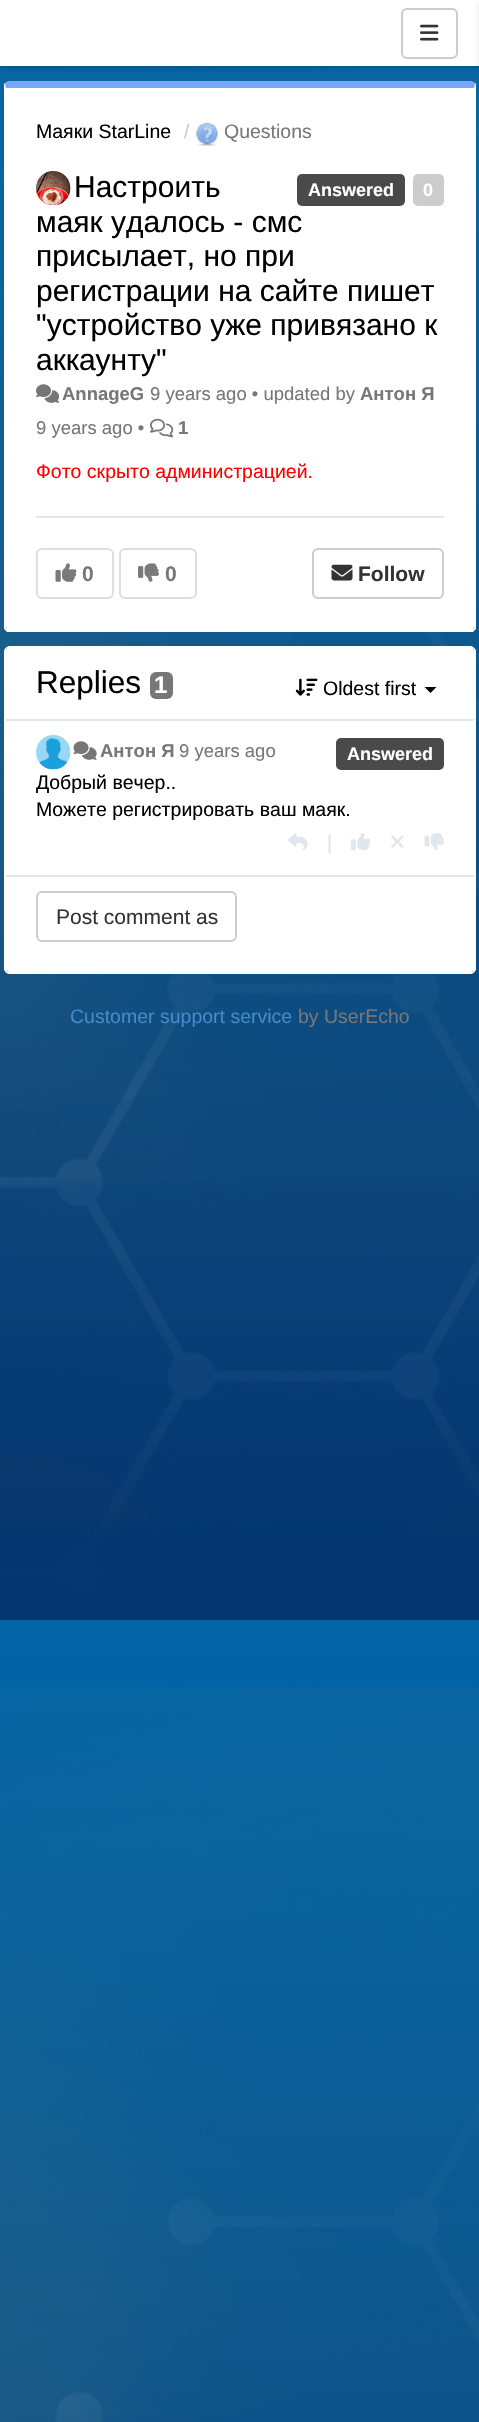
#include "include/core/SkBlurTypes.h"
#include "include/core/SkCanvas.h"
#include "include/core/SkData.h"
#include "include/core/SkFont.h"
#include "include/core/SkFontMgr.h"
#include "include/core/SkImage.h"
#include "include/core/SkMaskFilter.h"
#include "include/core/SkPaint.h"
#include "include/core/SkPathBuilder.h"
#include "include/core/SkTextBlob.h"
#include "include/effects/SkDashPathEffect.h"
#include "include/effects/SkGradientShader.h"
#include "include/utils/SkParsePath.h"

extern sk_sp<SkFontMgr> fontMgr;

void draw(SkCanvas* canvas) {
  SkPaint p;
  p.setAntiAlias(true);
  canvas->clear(SK_ColorWHITE);
  canvas->drawImageRect(SkImages::DeferredFromEncodedData(SkData::MakeFromFileName("images/1.png")), SkRect::MakeLTRB(0, 66, 479, 2422), SkSamplingOptions());
  p.setColor(SkColorSetARGB(38, 0, 0, 0));
  p.setMaskFilter(SkMaskFilter::MakeBlur(kNormal_SkBlurStyle, 3));
  canvas->drawRect(SkRect::MakeLTRB(0, 3, 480, 69), p);
  p.setMaskFilter(nullptr);
  p.setColor(SK_ColorWHITE);
  canvas->drawRect(SkRect::MakeLTRB(0, 0, 479, 66), p);
  p.setStyle(SkPaint::kStroke_Style);
  p.setStrokeWidth(2);
  p.setColor(SkColorSetRGB(204, 204, 204));
  canvas->drawRoundRect(SkRect::MakeLTRB(402, 9, 457, 58), 5, 5, p);
  canvas->drawImageRect(SkImages::DeferredFromEncodedData(SkData::MakeFromFileName("images/2.png")), SkRect::MakeLTRB(420, 24, 439, 41), SkSamplingOptions());
  p.setStyle(SkPaint::kFill_Style);
  p.setColor(SkColorSetARGB(38, 0, 0, 0));
  p.setMaskFilter(SkMaskFilter::MakeBlur(kNormal_SkBlurStyle, 3));
  canvas->drawRect(SkRect::MakeLTRB(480, 3, 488, 69), p);
  p.setMaskFilter(nullptr);
  p.setColor(SK_ColorWHITE);
  canvas->drawPath(SkPathBuilder().moveTo(9, 88).lineTo(474, 88).lineTo(474, 627).cubicTo(474, 628, 473, 628, 471, 628).lineTo(9, 628).cubicTo(7, 628, 6, 628, 6, 627).lineTo(6, 88).close().detach(), p);
  p.setColor(SkColorSetRGB(118, 167, 250));
  canvas->drawPath(SkPathBuilder().moveTo(9, 81).cubicTo(8, 81, 6, 82, 5, 83).lineTo(6, 88).lineTo(474, 88).lineTo(475, 83).cubicTo(474, 82, 472, 81, 471, 81).close().detach(), p);
  p.setColor(SK_ColorWHITE);
  canvas->drawPath(SkPathBuilder().moveTo(476, 629).lineTo(475, 630).lineTo(474, 628).lineTo(474, 627).lineTo(474, 88).lineTo(475, 83).lineTo(476, 84).close().detach(), p);
  canvas->drawPath(SkPathBuilder().moveTo(7, 632).lineTo(5, 630).lineTo(6, 628).lineTo(474, 628).lineTo(475, 630).lineTo(473, 632).close().detach(), p);
  canvas->drawPath(SkPathBuilder().moveTo(4, 84).lineTo(5, 83).lineTo(6, 88).lineTo(6, 627).lineTo(6, 628).lineTo(5, 630).lineTo(4, 629).close().detach(), p);
  canvas->drawImageRect(SkImages::DeferredFromEncodedData(SkData::MakeFromFileName("images/3.png")), SkRect::MakeLTRB(196, 122, 218, 146), SkSamplingOptions());
  canvas->drawImageRect(SkImages::DeferredFromEncodedData(SkData::MakeFromFileName("images/4.png")), SkRect::MakeLTRB(36, 171, 71, 206), SkSamplingOptions());
  p.setColor(SkColorSetRGB(74, 74, 74));
  canvas->drawRoundRect(SkRect::MakeLTRB(297, 174, 405, 206), 5, 5, p);
  p.setColor(SkColorSetRGB(204, 204, 204));
  canvas->drawRoundRect(SkRect::MakeLTRB(413, 174, 444, 206), 5, 5, p);
  canvas->drawImageRect(SkImages::DeferredFromEncodedData(SkData::MakeFromFileName("images/5.png")), SkRect::MakeLTRB(36, 384, 60, 403), SkSamplingOptions());
  canvas->drawImageRect(SkImages::DeferredFromEncodedData(SkData::MakeFromFileName("images/6.png")), SkRect::MakeLTRB(150, 418, 174, 438), SkSamplingOptions());
  p.setColor(SkColorSetRGB(229, 229, 229));
  canvas->drawRect(SkRect::MakeLTRB(36, 516, 444, 518), p);
  p.setStyle(SkPaint::kStroke_Style);
  p.setColor(SkColorSetRGB(222, 222, 222));
  canvas->drawRoundRect(SkRect::MakeLTRB(37, 549, 113, 598), 5, 5, p);
  canvas->drawImageRect(SkImages::DeferredFromEncodedData(SkData::MakeFromFileName("images/7.png")), SkRect::MakeLTRB(55, 563, 77, 582), SkSamplingOptions());
  canvas->drawRoundRect(SkRect::MakeLTRB(120, 549, 196, 598), 5, 5, p);
  canvas->drawImageRect(SkImages::DeferredFromEncodedData(SkData::MakeFromFileName("images/8.png")), SkRect::MakeLTRB(138, 563, 159, 582), SkSamplingOptions());
  p.setColor(SkColorSetRGB(204, 204, 204));
  canvas->drawRoundRect(SkRect::MakeLTRB(313, 549, 443, 598), 5, 5, p);
  canvas->drawImageRect(SkImages::DeferredFromEncodedData(SkData::MakeFromFileName("images/9.png")), SkRect::MakeLTRB(331, 564, 353, 581), SkSamplingOptions());
  p.setStyle(SkPaint::kFill_Style);
  p.setColor(SK_ColorWHITE);
  canvas->drawPath(SkPathBuilder().moveTo(9, 646).lineTo(471, 646).cubicTo(473, 646, 474, 649, 474, 651).lineTo(474, 969).cubicTo(474, 971, 473, 972, 471, 972).lineTo(9, 972).cubicTo(7, 972, 6, 971, 6, 969).lineTo(6, 651).cubicTo(6, 649, 7, 646, 9, 646).close().detach(), p);
  canvas->drawPath(SkPathBuilder(SkPathFillType::kEvenOdd).moveTo(9, 646).lineTo(471, 646).cubicTo(473, 646, 476, 649, 476, 651).lineTo(476, 969).cubicTo(476, 971, 473, 974, 471, 974).lineTo(9, 974).cubicTo(7, 974, 4, 971, 4, 969).lineTo(4, 651).cubicTo(4, 649, 7, 646, 9, 646).close().moveTo(9, 646).lineTo(471, 646).cubicTo(473, 646, 474, 649, 474, 651).lineTo(474, 969).cubicTo(474, 971, 473, 972, 471, 972).lineTo(9, 972).cubicTo(7, 972, 6, 971, 6, 969).lineTo(6, 651).cubicTo(6, 649, 7, 646, 9, 646).close().detach(), p);
  p.setColor(SkColorSetRGB(119, 119, 119));
  canvas->drawRoundRect(SkRect::MakeLTRB(150, 672, 173, 699), 6, 6, p);
  canvas->drawImageRect(SkImages::DeferredFromEncodedData(SkData::MakeFromFileName("images/10.png")), SkRect::MakeLTRB(295, 678, 318, 696), SkSamplingOptions());
  p.setColor(SK_ColorBLACK);
  canvas->drawPath(SkPathBuilder().moveTo(424.5f, 687).lineTo(436.5f, 687).lineTo(430.5f, 693).close().detach(), p);
  p.setColor(SkColorSetRGB(225, 232, 237));
  canvas->drawRect(SkRect::MakeLTRB(6, 719, 474, 721), p);
  canvas->drawRect(SkRect::MakeLTRB(6, 875, 474, 877), p);
  canvas->drawImageRect(SkImages::DeferredFromEncodedData(SkData::MakeFromFileName("images/11.png")), SkRect::MakeLTRB(36, 735, 71, 770), SkSamplingOptions());
  canvas->drawImageRect(SkImages::DeferredFromEncodedData(SkData::MakeFromFileName("images/12.png")), SkRect::MakeLTRB(73, 741, 97, 760), SkSamplingOptions());
  p.setColor(SkColorSetRGB(74, 74, 74));
  canvas->drawRoundRect(SkRect::MakeLTRB(336, 738, 444, 770), 5, 5, p);
  canvas->drawImageRect(SkImages::DeferredFromEncodedData(SkData::MakeFromFileName("images/13.png")), SkRect::MakeLTRB(288, 833, 308, 850), SkSamplingOptions());
  canvas->drawImageRect(SkImages::DeferredFromEncodedData(SkData::MakeFromFileName("images/14.png")), SkRect::MakeLTRB(351, 833, 371, 851), SkSamplingOptions());
  canvas->drawImageRect(SkImages::DeferredFromEncodedData(SkData::MakeFromFileName("images/15.png")), SkRect::MakeLTRB(391, 835, 404, 848), SkSamplingOptions());
  canvas->drawImageRect(SkImages::DeferredFromEncodedData(SkData::MakeFromFileName("images/16.png")), SkRect::MakeLTRB(424, 833, 444, 850), SkSamplingOptions());
  p.setStyle(SkPaint::kStroke_Style);
  p.setColor(SkColorSetRGB(204, 204, 204));
  canvas->drawRoundRect(SkRect::MakeLTRB(37, 892, 236, 941), 5, 5, p);
  SkFont font1(fontMgr->matchFamilyStyle("Liberation Sans", SkFontStyle::Normal()), 19.5f);
  font1.setSubpixel(true);
  p.setStyle(SkPaint::kFill_Style);
  p.setColor(SK_ColorBLACK);
  canvas->drawString("Маяки StarLine", 36, 138, font1, p);
  p.setColor(SkColorSetRGB(204, 204, 204));
  canvas->drawString("/", 184, 138, font1, p);
  p.setColor(SkColorSetRGB(119, 119, 119));
  canvas->drawString("Questions", 224, 138, font1, p);
  SkFont font2(fontMgr->matchFamilyStyle("Liberation Sans", SkFontStyle::Normal()), 30);
  font2.setSubpixel(true);
  p.setColor(SK_ColorBLACK);
  canvas->drawString("Настроить", 74, 197, font2, p);
  canvas->drawString("маяк удалось - смс", 36, 232, font2, p);
  canvas->drawString("присылает, но при", 36, 266, font2, p);
  canvas->drawString("регистрации на сайте пишет", 36, 301, font2, p);
  canvas->drawString("\"устройство уже привязано к", 36, 335, font2, p);
  canvas->drawString("аккаунту\"", 36, 370, font2, p);
  SkFont font3(fontMgr->matchFamilyStyle("Liberation Sans", SkFontStyle::Bold()), 18);
  font3.setSubpixel(true);
  p.setColor(SK_ColorWHITE);
  canvas->drawString("Answered", 308, 196, font3, p);
  canvas->drawString("0", 423, 196, font3, p);
  SkFont font4(fontMgr->matchFamilyStyle("Liberation Sans", SkFontStyle::Bold()), 18.5f);
  font4.setSubpixel(true);
  p.setColor(SkColorSetRGB(119, 119, 119));
  canvas->drawString("AnnageG", 62, 400, font4, p);
  SkFont font5(fontMgr->matchFamilyStyle("Liberation Sans", SkFontStyle::Normal()), 18.5f);
  font5.setSubpixel(true);
  canvas->drawString("9 years ago • updated by", 150, 400, font5, p);
  canvas->drawString("Антон Я", 360, 400, font4, p);
  canvas->drawString("9 years ago •", 36, 434, font5, p);
  canvas->drawString("1", 178, 434, font4, p);
  p.setColor(SkColorSetRGB(255, 0, 0));
  canvas->drawString("Фото скрыто администрацией.", 36, 478, font1, p);
  SkFont font6(fontMgr->matchFamilyStyle("Liberation Sans", SkFontStyle::Bold()), 21);
  font6.setSubpixel(true);
  p.setColor(SkColorSetRGB(119, 119, 119));
  canvas->drawString("0", 82, 581, font6, p);
  canvas->drawString("0", 165, 581, font6, p);
  p.setColor(SkColorSetRGB(51, 51, 51));
  canvas->drawString("Follow", 358, 581, font6, p);
  SkFont font7(fontMgr->matchFamilyStyle("Liberation Sans", SkFontStyle::Normal()), 31.5f);
  font7.setSubpixel(true);
  p.setColor(SK_ColorBLACK);
  canvas->drawString("Replies", 36, 693, font7, p);
  SkFont font8(fontMgr->matchFamilyStyle("Liberation Sans", SkFontStyle::Bold()), 24);
  font8.setSubpixel(true);
  p.setColor(SK_ColorWHITE);
  canvas->drawString("1", 154, 693, font8, p);
  p.setColor(SK_ColorBLACK);
  canvas->drawString("Oldest first", 323, 695, font1, p);
  p.setColor(SkColorSetRGB(119, 119, 119));
  canvas->drawString("Антон Я", 100, 757, font4, p);
  canvas->drawString("9 years ago", 179, 757, font5, p);
  p.setColor(SK_ColorWHITE);
  canvas->drawString("Answered", 347, 760, font3, p);
  p.setColor(SK_ColorBLACK);
  canvas->drawString("Добрый вечер..", 36, 789, font1, p);
  canvas->drawString("Можете регистрировать ваш маяк.", 36, 816, font1, p);
  p.setColor(SkColorSetRGB(225, 232, 237));
  canvas->drawString("|", 327, 849, font1, p);
  SkFont font9(fontMgr->matchFamilyStyle("Liberation Sans", SkFontStyle::Normal()), 21);
  font9.setSubpixel(true);
  p.setColor(SkColorSetRGB(51, 51, 51));
  canvas->drawString("Post comment as", 56, 924, font9, p);
  p.setColor(SkColorSetRGB(66, 139, 202));
  canvas->drawString("Customer support service", 70, 1023, font1, p);
  p.setColor(SkColorSetRGB(119, 119, 119));
  canvas->drawString("by UserEcho", 298, 1023, font1, p);
}
